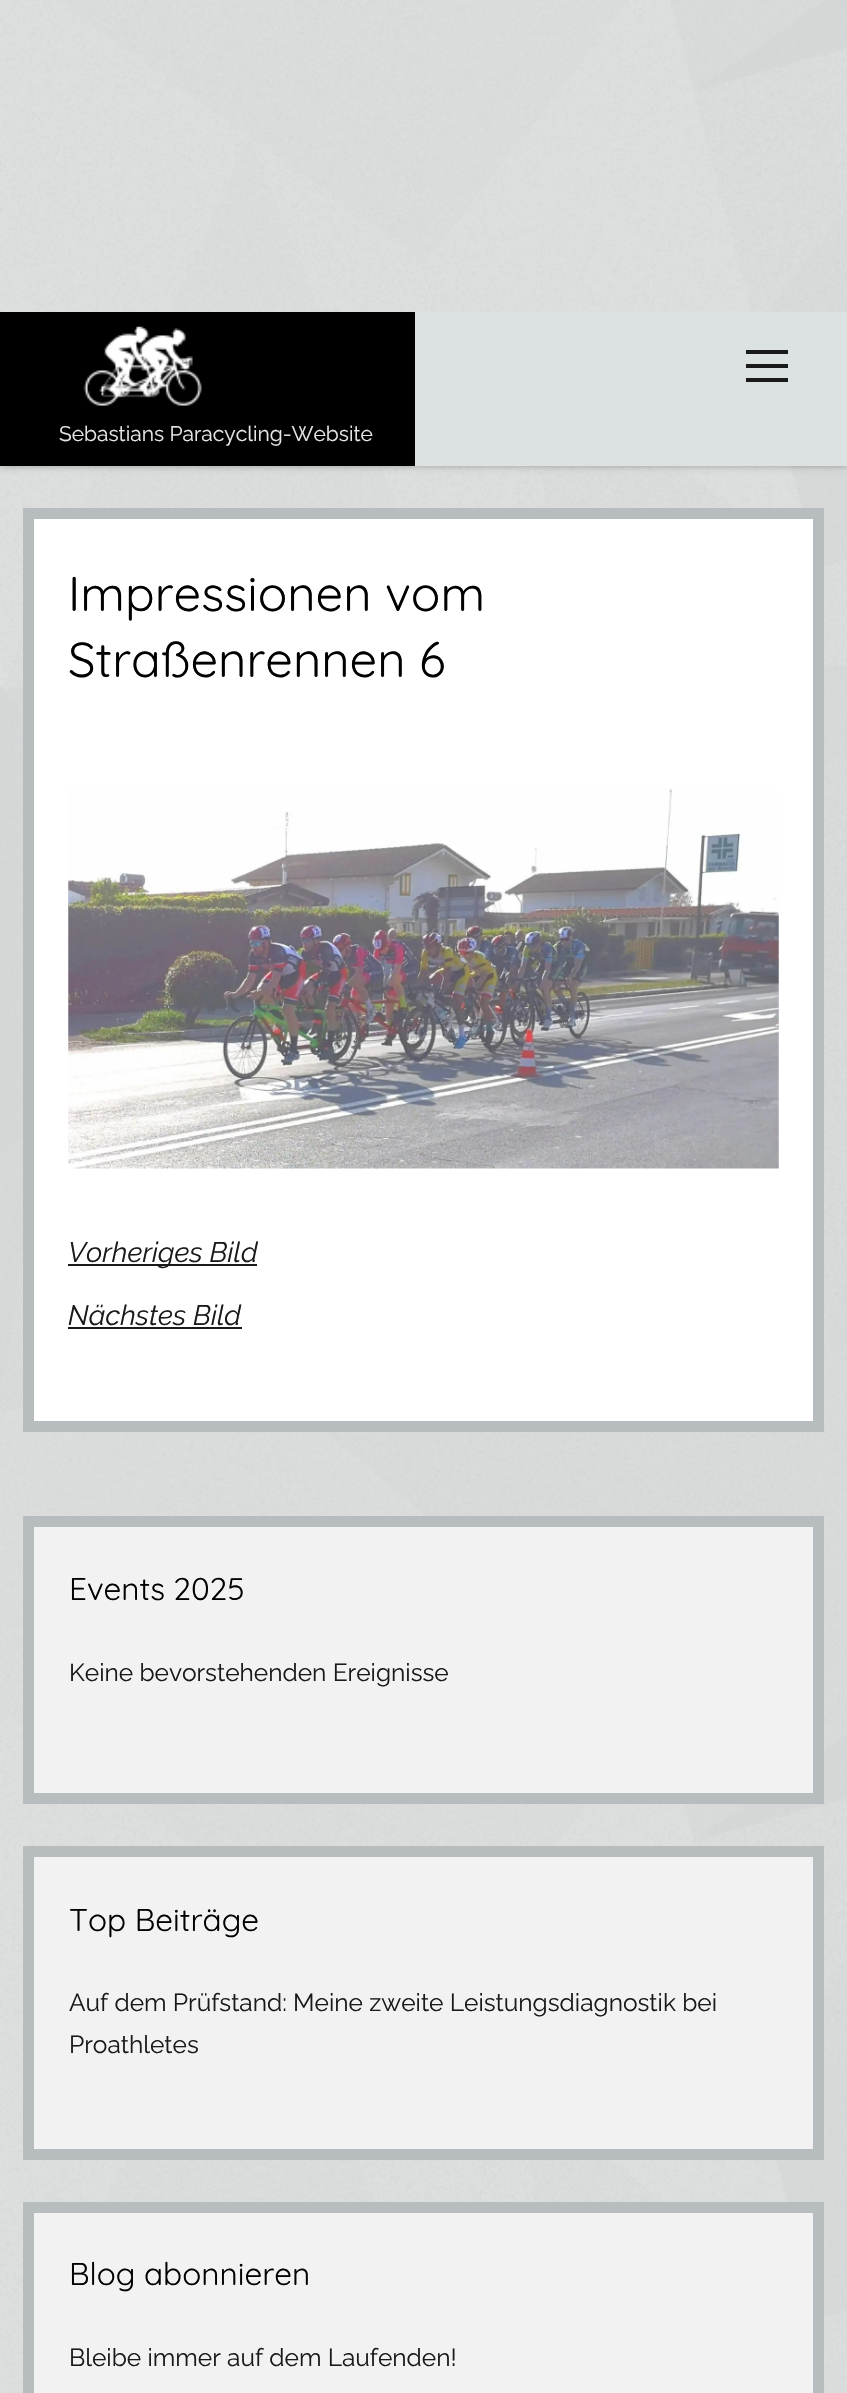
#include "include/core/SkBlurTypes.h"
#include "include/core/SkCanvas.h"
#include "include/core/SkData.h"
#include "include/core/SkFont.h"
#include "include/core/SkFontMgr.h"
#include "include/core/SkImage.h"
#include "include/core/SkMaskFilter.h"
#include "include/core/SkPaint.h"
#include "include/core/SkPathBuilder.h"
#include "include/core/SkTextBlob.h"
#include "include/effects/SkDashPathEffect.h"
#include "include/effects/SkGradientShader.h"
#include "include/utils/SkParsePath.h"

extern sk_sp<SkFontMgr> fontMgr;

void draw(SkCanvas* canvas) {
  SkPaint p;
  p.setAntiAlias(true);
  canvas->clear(SK_ColorWHITE);
  canvas->drawImageRect(SkImages::DeferredFromEncodedData(SkData::MakeFromFileName("images/1.png")), SkRect::MakeLTRB(0, 0, 847, 2393), SkSamplingOptions());
  canvas->save();
  canvas->clipRect(SkRect::MakeLTRB(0, 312, 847, 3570));
  p.setColor(SkColorSetARGB(77, 0, 0, 0));
  p.setMaskFilter(SkMaskFilter::MakeBlur(kNormal_SkBlurStyle, 3.5f));
  canvas->drawRect(SkRect::MakeLTRB(0, 312, 847, 466), p);
  p.setMaskFilter(nullptr);
  canvas->restore();
  p.setColor(SkColorSetRGB(220, 226, 226));
  canvas->drawRect(SkRect::MakeLTRB(415, 312, 847, 466), p);
  p.setColor(SkColorSetRGB(26, 26, 26));
  canvas->drawRect(SkRect::MakeLTRB(746, 378, 788, 382), p);
  canvas->drawRect(SkRect::MakeLTRB(746, 364, 788, 368), p);
  canvas->drawRect(SkRect::MakeLTRB(746, 350, 788, 354), p);
  p.setColor(SK_ColorBLACK);
  canvas->drawRect(SkRect::MakeLTRB(0, 312, 415, 466), p);
  canvas->drawImageRect(SkImages::DeferredFromEncodedData(SkData::MakeFromFileName("images/2.png")), SkRect::MakeLTRB(83, 326, 202, 406), SkSamplingOptions());
  p.setColor(SK_ColorWHITE);
  canvas->drawRect(SkRect::MakeLTRB(28.5f, 513.5f, 818.5f, 1426.5f), p);
  p.setStyle(SkPaint::kStroke_Style);
  p.setStrokeWidth(11);
  p.setColor(SkColorSetRGB(183, 188, 191));
  canvas->drawRect(SkRect::MakeLTRB(28.5f, 513.5f, 818.5f, 1426.5f), p);
  canvas->drawImageRect(SkImages::DeferredFromEncodedData(SkData::MakeFromFileName("images/3.png")), SkRect::MakeLTRB(68, 788, 779, 1169), SkSamplingOptions());
  p.setStyle(SkPaint::kFill_Style);
  p.setColor(SkColorSetRGB(26, 26, 26));
  canvas->drawRect(SkRect::MakeLTRB(68, 1264, 257, 1266), p);
  canvas->drawRect(SkRect::MakeLTRB(68, 1327, 242, 1329), p);
  p.setColor(SkColorSetRGB(242, 242, 242));
  canvas->drawRect(SkRect::MakeLTRB(28.5f, 1521.5f, 818.5f, 1798.5f), p);
  p.setStyle(SkPaint::kStroke_Style);
  p.setColor(SkColorSetRGB(183, 188, 191));
  canvas->drawRect(SkRect::MakeLTRB(28.5f, 1521.5f, 818.5f, 1798.5f), p);
  p.setStyle(SkPaint::kFill_Style);
  p.setColor(SkColorSetRGB(242, 242, 242));
  canvas->drawRect(SkRect::MakeLTRB(28.5f, 1851.5f, 818.5f, 2154.5f), p);
  p.setStyle(SkPaint::kStroke_Style);
  p.setColor(SkColorSetRGB(183, 188, 191));
  canvas->drawRect(SkRect::MakeLTRB(28.5f, 1851.5f, 818.5f, 2154.5f), p);
  p.setStyle(SkPaint::kFill_Style);
  p.setColor(SkColorSetRGB(242, 242, 242));
  canvas->drawRect(SkRect::MakeLTRB(28.5f, 2207.5f, 818.5f, 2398.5f), p);
  p.setStyle(SkPaint::kStroke_Style);
  p.setColor(SkColorSetRGB(183, 188, 191));
  canvas->drawRect(SkRect::MakeLTRB(28.5f, 2207.5f, 818.5f, 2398.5f), p);
  SkFont font1(fontMgr->matchFamilyStyle("Raleway", SkFontStyle::Normal()), 21);
  font1.setSubpixel(true);
  p.setStyle(SkPaint::kFill_Style);
  p.setColor(SkColorSetRGB(230, 230, 230));
  canvas->drawString("Sebastians Paracycling-Website", 59, 441, font1, p);
  SkFont font2(fontMgr->matchFamilyStyle("Quicksand", SkFontStyle::Normal()), 49);
  font2.setSubpixel(true);
  p.setColor(SK_ColorBLACK);
  canvas->drawString("Impressionen vom", 68, 611, font2, p);
  canvas->drawString("Straßenrennen 6", 68, 677, font2, p);
  SkFont font3(fontMgr->matchFamilyStyle("Raleway", SkFontStyle::Italic()), 28);
  font3.setSubpixel(true);
  p.setColor(SkColorSetRGB(26, 26, 26));
  canvas->drawString("Vorheriges Bild", 68, 1262, font3, p);
  canvas->drawString("Nächstes Bild", 68, 1325, font3, p);
  SkFont font4(fontMgr->matchFamilyStyle("Quicksand", SkFontStyle::Normal()), 31.5f);
  font4.setSubpixel(true);
  p.setColor(SK_ColorBLACK);
  canvas->drawString("Events 2025", 69, 1600, font4, p);
  SkFont font5(fontMgr->matchFamilyStyle("Raleway", SkFontStyle::Normal()), 24.5f);
  font5.setSubpixel(true);
  p.setColor(SkColorSetRGB(26, 26, 26));
  canvas->drawString("Keine bevorstehenden Ereignisse", 69, 1681, font5, p);
  p.setColor(SK_ColorBLACK);
  canvas->drawString("Top Beiträge", 69, 1931, font4, p);
  p.setColor(SkColorSetRGB(26, 26, 26));
  canvas->drawString("Auf dem Prüfstand: Meine zweite Leistungsdiagnostik bei", 69, 2011, font5, p);
  canvas->drawString("Proathletes", 69, 2053, font5, p);
  p.setColor(SK_ColorBLACK);
  canvas->drawString("Blog abonnieren", 69, 2285, font4, p);
  p.setColor(SkColorSetRGB(26, 26, 26));
  canvas->drawString("Bleibe immer auf dem Laufenden!", 69, 2366, font5, p);
}
